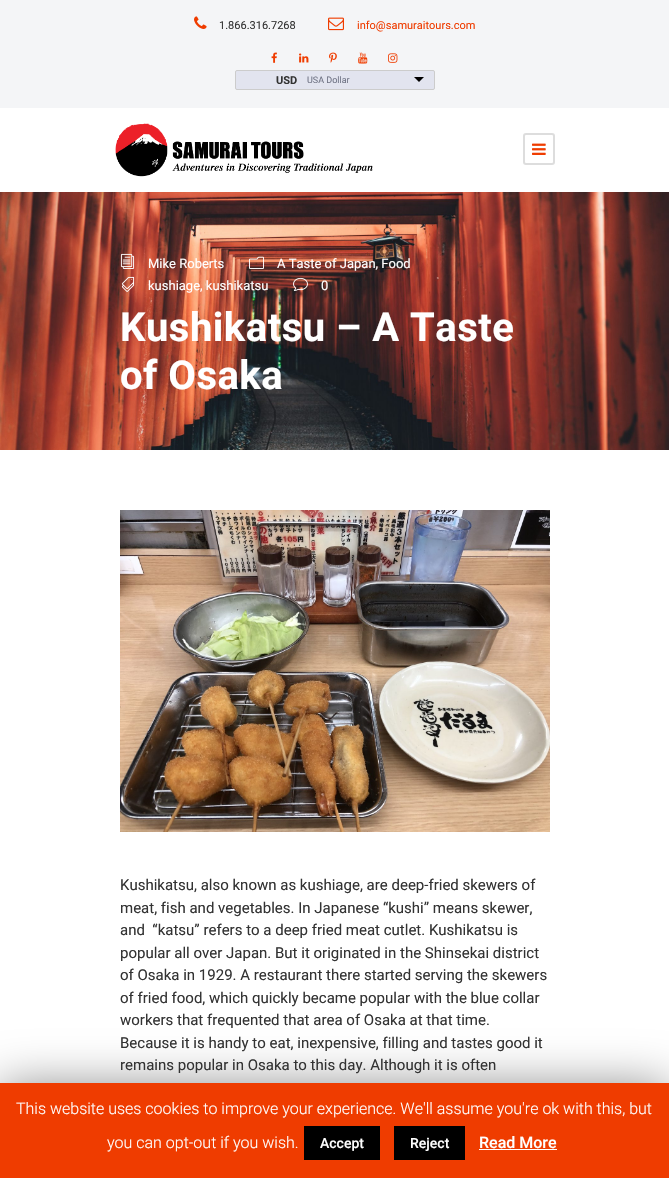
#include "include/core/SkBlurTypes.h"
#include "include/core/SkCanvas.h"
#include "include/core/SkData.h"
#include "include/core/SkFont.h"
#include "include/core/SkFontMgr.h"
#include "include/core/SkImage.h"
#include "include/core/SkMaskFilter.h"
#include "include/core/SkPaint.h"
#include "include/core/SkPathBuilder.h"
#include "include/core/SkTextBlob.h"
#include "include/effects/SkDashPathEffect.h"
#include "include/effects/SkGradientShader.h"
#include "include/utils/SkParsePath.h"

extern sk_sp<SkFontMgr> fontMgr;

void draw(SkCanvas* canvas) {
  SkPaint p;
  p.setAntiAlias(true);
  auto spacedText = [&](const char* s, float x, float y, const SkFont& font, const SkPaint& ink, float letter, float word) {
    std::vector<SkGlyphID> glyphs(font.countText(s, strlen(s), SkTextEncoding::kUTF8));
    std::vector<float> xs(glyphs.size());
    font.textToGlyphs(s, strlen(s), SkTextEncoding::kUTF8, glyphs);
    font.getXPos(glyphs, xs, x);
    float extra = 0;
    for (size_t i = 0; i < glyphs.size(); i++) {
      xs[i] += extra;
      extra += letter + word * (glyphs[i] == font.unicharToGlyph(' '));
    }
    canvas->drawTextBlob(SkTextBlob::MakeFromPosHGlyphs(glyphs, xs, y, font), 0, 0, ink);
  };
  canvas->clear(SK_ColorWHITE);
  p.setColor(SkColorSetRGB(244, 245, 247));
  canvas->drawRect(SkRect::MakeLTRB(0, 0, 669, 108), p);
  canvas->drawImageRect(SkImages::DeferredFromEncodedData(SkData::MakeFromFileName("images/1.png")), SkRect::MakeLTRB(194, 16, 207, 29), SkSamplingOptions());
  canvas->drawImageRect(SkImages::DeferredFromEncodedData(SkData::MakeFromFileName("images/2.png")), SkRect::MakeLTRB(328, 17, 344, 31), SkSamplingOptions());
  canvas->drawImageRect(SkImages::DeferredFromEncodedData(SkData::MakeFromFileName("images/3.png")), SkRect::MakeLTRB(271, 52, 277, 63), SkSamplingOptions());
  canvas->drawImageRect(SkImages::DeferredFromEncodedData(SkData::MakeFromFileName("images/4.png")), SkRect::MakeLTRB(299, 53, 309, 63), SkSamplingOptions());
  canvas->drawImageRect(SkImages::DeferredFromEncodedData(SkData::MakeFromFileName("images/5.png")), SkRect::MakeLTRB(329, 52, 337, 63), SkSamplingOptions());
  canvas->drawImageRect(SkImages::DeferredFromEncodedData(SkData::MakeFromFileName("images/6.png")), SkRect::MakeLTRB(358, 52, 368, 64), SkSamplingOptions());
  canvas->drawImageRect(SkImages::DeferredFromEncodedData(SkData::MakeFromFileName("images/7.png")), SkRect::MakeLTRB(388, 53, 398, 63), SkSamplingOptions());
  p.setColor(SkColorSetRGB(226, 228, 239));
  canvas->drawRoundRect(SkRect::MakeLTRB(235.5f, 70.5f, 434.5f, 89.5f), 1.5f, 1.5f, p);
  p.setStyle(SkPaint::kStroke_Style);
  p.setStrokeWidth(1);
  p.setColor(SkColorSetRGB(204, 204, 204));
  canvas->drawRoundRect(SkRect::MakeLTRB(235.5f, 70.5f, 434.5f, 89.5f), 1.5f, 1.5f, p);
  p.setStyle(SkPaint::kFill_Style);
  p.setColor(SK_ColorBLACK);
  canvas->drawPath(SkPathBuilder().moveTo(414, 77).lineTo(424, 77).lineTo(419, 82).close().detach(), p);
  canvas->drawImageRect(SkImages::DeferredFromEncodedData(SkData::MakeFromFileName("images/8.png")), SkRect::MakeLTRB(115, 123, 373, 177), SkSamplingOptions());
  p.setStyle(SkPaint::kStroke_Style);
  p.setStrokeWidth(2);
  p.setColor(SkColorSetRGB(221, 221, 221));
  canvas->drawRoundRect(SkRect::MakeLTRB(524, 134, 554, 164), 2, 2, p);
  canvas->drawImageRect(SkImages::DeferredFromEncodedData(SkData::MakeFromFileName("images/9.png")), SkRect::MakeLTRB(532, 143, 546, 155), SkSamplingOptions());
  canvas->drawImageRect(SkImages::DeferredFromEncodedData(SkData::MakeFromFileName("images/10.png")), SkRect::MakeLTRB(0, 192, 669, 450), SkSamplingOptions());
  canvas->drawImageRect(SkImages::DeferredFromEncodedData(SkData::MakeFromFileName("images/11.png")), SkRect::MakeLTRB(120, 253, 135, 269), SkSamplingOptions());
  canvas->drawImageRect(SkImages::DeferredFromEncodedData(SkData::MakeFromFileName("images/12.png")), SkRect::MakeLTRB(249, 256, 264, 269), SkSamplingOptions());
  canvas->drawImageRect(SkImages::DeferredFromEncodedData(SkData::MakeFromFileName("images/13.png")), SkRect::MakeLTRB(121, 276, 135, 292), SkSamplingOptions());
  canvas->drawImageRect(SkImages::DeferredFromEncodedData(SkData::MakeFromFileName("images/14.png")), SkRect::MakeLTRB(293, 277, 308, 291), SkSamplingOptions());
  canvas->drawImageRect(SkImages::DeferredFromEncodedData(SkData::MakeFromFileName("images/15.png")), SkRect::MakeLTRB(120, 510, 550, 832), SkSamplingOptions());
  p.setStyle(SkPaint::kFill_Style);
  p.setColor(SkColorSetARGB(128, 0, 0, 0));
  p.setMaskFilter(SkMaskFilter::MakeBlur(kNormal_SkBlurStyle, 25));
  canvas->drawRect(SkRect::MakeLTRB(0, 1088, 669, 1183), p);
  p.setMaskFilter(nullptr);
  p.setColor(SkColorSetRGB(239, 60, 0));
  canvas->drawRect(SkRect::MakeLTRB(0, 1083, 669, 1178), p);
  p.setColor(SK_ColorBLACK);
  canvas->drawRect(SkRect::MakeLTRB(304, 1126, 380, 1160), p);
  canvas->drawRect(SkRect::MakeLTRB(394, 1126, 465, 1160), p);
  p.setColor(SK_ColorWHITE);
  canvas->drawRect(SkRect::MakeLTRB(479, 1149, 557, 1150), p);
  SkFont font1(fontMgr->matchFamilyStyle("Roboto", SkFontStyle::Normal()), 11);
  font1.setSubpixel(true);
  p.setColor(SkColorSetRGB(51, 51, 51));
  canvas->drawString("1.866.316.7268", 219, 29, font1, p);
  p.setColor(SkColorSetRGB(239, 60, 0));
  canvas->drawString("info@samuraitours.com", 357, 29, font1, p);
  SkFont font2(fontMgr->matchFamilyStyle("Roboto", SkFontStyle::Bold()), 11);
  font2.setSubpixel(true);
  p.setColor(SkColorSetRGB(51, 51, 51));
  canvas->drawString("USD", 276, 84, font2, p);
  SkFont font3(fontMgr->matchFamilyStyle("Roboto", SkFontStyle::Normal()), 9);
  font3.setSubpixel(true);
  p.setColor(SkColorSetRGB(113, 117, 134));
  canvas->drawString("USA Dollar", 307, 83, font3, p);
  SkFont font4(fontMgr->matchFamilyStyle("Roboto", SkFontStyle::Normal()), 13);
  font4.setSubpixel(true);
  p.setColor(SK_ColorWHITE);
  canvas->drawString("Mike Roberts", 148, 268, font4, p);
  canvas->drawString("A Taste of Japan, Food", 277, 268, font4, p);
  canvas->drawString("kushiage, kushikatsu", 148, 290, font4, p);
  canvas->drawString("0", 321, 290, font4, p);
  SkFont font5(fontMgr->matchFamilyStyle("Roboto", SkFontStyle::Bold()), 40);
  font5.setSubpixel(true);
  spacedText("Kushikatsu – A Taste", 120, 341, font5, p, 0.5f, 0);
  spacedText("of Osaka", 120, 389, font5, p, 0.5f, 0);
  SkFont font6(fontMgr->matchFamilyStyle("Roboto", SkFontStyle::Normal()), 15);
  font6.setSubpixel(true);
  p.setColor(SkColorSetRGB(51, 51, 51));
  canvas->drawString("Kushikatsu, also known as kushiage, are deep-fried skewers of", 120, 890, font6, p);
  canvas->drawString("meat, fish and vegetables. In Japanese “kushi” means skewer,", 120, 913, font6, p);
  canvas->drawString("and  “katsu” refers to a deep fried meat cutlet. Kushikatsu is", 120, 935, font6, p);
  canvas->drawString("popular all over Japan. But it originated in the Shinsekai district", 120, 958, font6, p);
  canvas->drawString("of Osaka in 1929. A restaurant there started serving the skewers", 120, 980, font6, p);
  canvas->drawString("of fried food, which quickly became popular with the blue collar", 120, 1003, font6, p);
  canvas->drawString("workers that frequented that area of Osaka at that time.", 120, 1025, font6, p);
  canvas->drawString("Because it is handy to eat, inexpensive, filling and tastes good it", 120, 1048, font6, p);
  canvas->drawString("remains popular in Osaka to this day. Although it is often", 120, 1070, font6, p);
  SkFont font7(fontMgr->matchFamilyStyle("Roboto", SkFontStyle(300, SkFontStyle::kNormal_Width, SkFontStyle::kUpright_Slant)), 16);
  font7.setSubpixel(true);
  p.setColor(SK_ColorWHITE);
  canvas->drawString("This website uses cookies to improve your experience. We'll assume you're ok with this, but", 16, 1114, font7, p);
  canvas->drawString("you can opt-out if you wish.", 107, 1148, font7, p);
  SkFont font8(fontMgr->matchFamilyStyle("Roboto", SkFontStyle(500, SkFontStyle::kNormal_Width, SkFontStyle::kUpright_Slant)), 14);
  font8.setSubpixel(true);
  canvas->drawString("Accept", 320, 1148, font8, p);
  canvas->drawString("Reject", 410, 1148, font8, p);
  SkFont font9(fontMgr->matchFamilyStyle("Roboto", SkFontStyle(500, SkFontStyle::kNormal_Width, SkFontStyle::kUpright_Slant)), 16);
  font9.setSubpixel(true);
  canvas->drawString("Read More", 479, 1148, font9, p);
}
